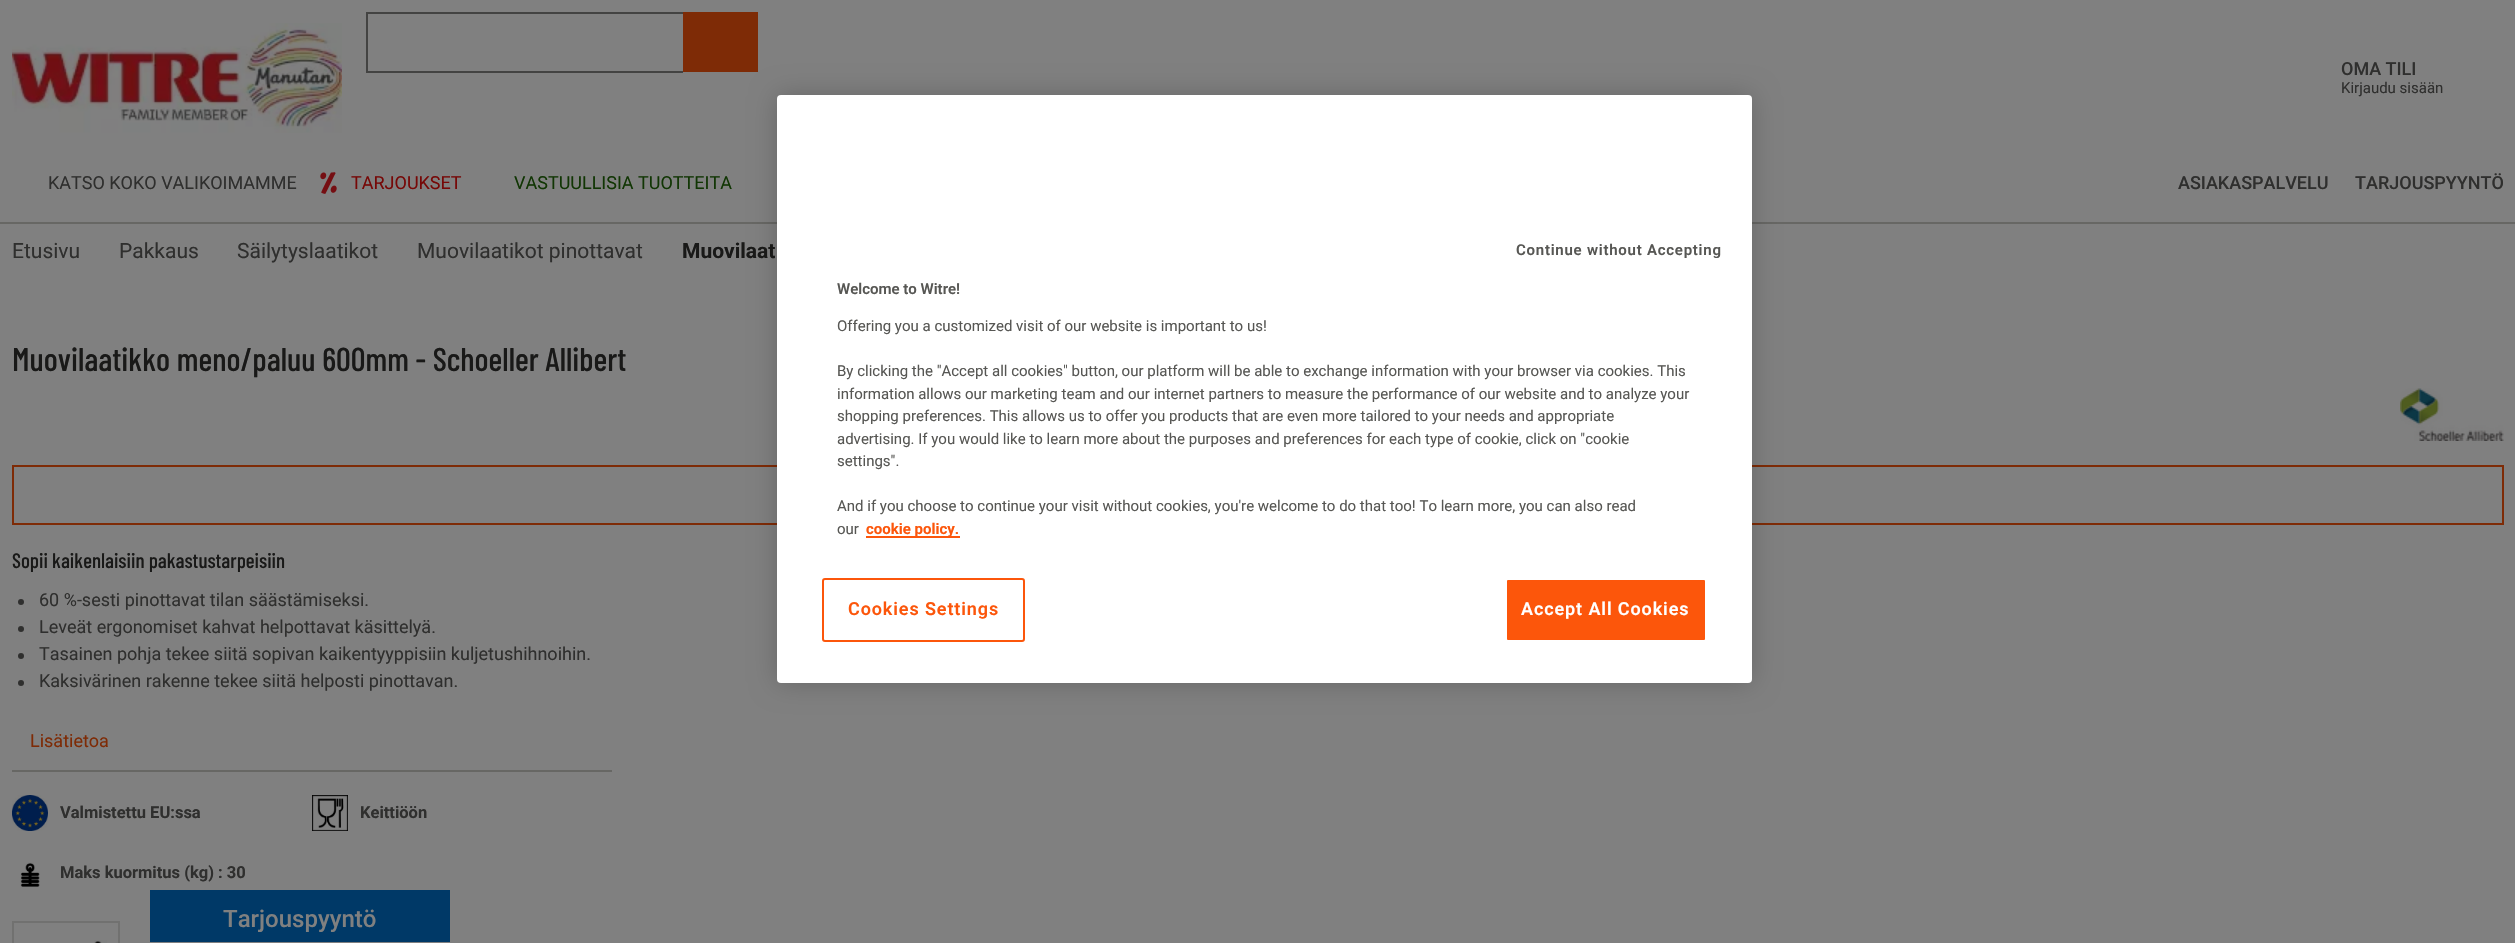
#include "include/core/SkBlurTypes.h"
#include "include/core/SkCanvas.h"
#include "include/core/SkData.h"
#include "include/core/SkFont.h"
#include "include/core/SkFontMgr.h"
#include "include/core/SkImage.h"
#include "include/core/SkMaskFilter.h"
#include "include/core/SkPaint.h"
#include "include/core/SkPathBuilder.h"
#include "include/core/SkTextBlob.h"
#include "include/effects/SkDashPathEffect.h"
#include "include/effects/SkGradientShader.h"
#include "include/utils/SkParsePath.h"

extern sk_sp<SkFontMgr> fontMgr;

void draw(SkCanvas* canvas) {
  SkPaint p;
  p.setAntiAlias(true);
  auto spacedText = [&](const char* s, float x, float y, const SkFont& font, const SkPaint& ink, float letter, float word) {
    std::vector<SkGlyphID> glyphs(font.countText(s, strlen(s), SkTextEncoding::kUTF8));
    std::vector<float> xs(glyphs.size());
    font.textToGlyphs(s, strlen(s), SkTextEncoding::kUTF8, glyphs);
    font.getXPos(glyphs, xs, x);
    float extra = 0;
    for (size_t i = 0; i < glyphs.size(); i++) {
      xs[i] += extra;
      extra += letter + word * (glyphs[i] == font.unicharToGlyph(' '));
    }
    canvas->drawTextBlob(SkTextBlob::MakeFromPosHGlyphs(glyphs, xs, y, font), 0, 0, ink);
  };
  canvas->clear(SkColorSetRGB(128, 128, 128));
  p.setColor(SkColorSetRGB(103, 103, 100));
  canvas->drawRect(SkRect::MakeLTRB(0, 222, 2515, 224), p);
  canvas->drawImageRect(SkImages::DeferredFromEncodedData(SkData::MakeFromFileName("images/1.png")), SkRect::MakeLTRB(12, 23, 342, 133), SkSamplingOptions());
  p.setColor(SkColorSetRGB(67, 67, 66));
  canvas->drawRect(SkRect::MakeLTRB(366, 12, 683, 14), p);
  canvas->drawRect(SkRect::MakeLTRB(366, 71, 683, 73), p);
  canvas->drawRect(SkRect::MakeLTRB(366, 12, 368, 72), p);
  p.setColor(SkColorSetRGB(126, 43, 6));
  canvas->drawRect(SkRect::MakeLTRB(683, 12, 758, 72), p);
  canvas->drawImageRect(SkImages::DeferredFromEncodedData(SkData::MakeFromFileName("images/2.png")), SkRect::MakeLTRB(320, 172, 337, 194), SkSamplingOptions());
  canvas->drawImageRect(SkImages::DeferredFromEncodedData(SkData::MakeFromFileName("images/3.png")), SkRect::MakeLTRB(2400, 388, 2504, 441), SkSamplingOptions());
  p.setStyle(SkPaint::kStroke_Style);
  p.setStrokeWidth(2);
  canvas->drawRect(SkRect::MakeLTRB(13, 466, 2503, 524), p);
  p.setStyle(SkPaint::kFill_Style);
  p.setColor(SkColorSetRGB(47, 47, 46));
  canvas->drawCircle(21, 602, 3, p);
  canvas->drawCircle(21, 629, 3, p);
  canvas->drawCircle(21, 656, 3, p);
  canvas->drawCircle(21, 683, 3, p);
  p.setColor(SkColorSetRGB(103, 103, 100));
  canvas->drawRect(SkRect::MakeLTRB(12, 770, 612, 772), p);
  canvas->drawImageRect(SkImages::DeferredFromEncodedData(SkData::MakeFromFileName("images/4.png")), SkRect::MakeLTRB(12, 795, 48, 831), SkSamplingOptions());
  canvas->drawImageRect(SkImages::DeferredFromEncodedData(SkData::MakeFromFileName("images/5.png")), SkRect::MakeLTRB(312, 795, 348, 831), SkSamplingOptions());
  canvas->drawImageRect(SkImages::DeferredFromEncodedData(SkData::MakeFromFileName("images/6.png")), SkRect::MakeLTRB(20, 862, 40, 887), SkSamplingOptions());
  p.setStyle(SkPaint::kStroke_Style);
  p.setColor(SkColorSetRGB(113, 113, 112));
  canvas->drawRect(SkRect::MakeLTRB(13, 922, 119, 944), p);
  canvas->drawImageRect(SkImages::DeferredFromEncodedData(SkData::MakeFromFileName("images/7.png")), SkRect::MakeLTRB(94, 940, 107, 943), SkSamplingOptions());
  p.setStyle(SkPaint::kFill_Style);
  p.setColor(SkColorSetRGB(0, 57, 103));
  canvas->drawRect(SkRect::MakeLTRB(150, 890, 450, 942), p);
  p.setColor(SkColorSetARGB(51, 0, 0, 0));
  p.setMaskFilter(SkMaskFilter::MakeBlur(kNormal_SkBlurStyle, 13.5f));
  canvas->drawRoundRect(SkRect::MakeLTRB(777, 95, 1752, 683), 4, 4, p);
  p.setMaskFilter(nullptr);
  p.setColor(SK_ColorWHITE);
  canvas->drawRoundRect(SkRect::MakeLTRB(777, 95, 1752, 683), 4, 4, p);
  p.setColor(SkColorSetRGB(252, 86, 11));
  canvas->drawRect(SkRect::MakeLTRB(866, 536, 960, 538), p);
  p.setStyle(SkPaint::kStroke_Style);
  canvas->drawRoundRect(SkRect::MakeLTRB(823, 579, 1024, 641), 2, 2, p);
  p.setStyle(SkPaint::kFill_Style);
  canvas->drawRoundRect(SkRect::MakeLTRB(1506, 579, 1706, 641), 2, 2, p);
  p.setStyle(SkPaint::kStroke_Style);
  p.setColor(SK_ColorWHITE);
  canvas->drawRoundRect(SkRect::MakeLTRB(1506, 579, 1706, 641), 2, 2, p);
  SkFont font1(fontMgr->matchFamilyStyle("Roboto", SkFontStyle(500, SkFontStyle::kNormal_Width, SkFontStyle::kUpright_Slant)), 18);
  font1.setSubpixel(true);
  p.setStyle(SkPaint::kFill_Style);
  p.setColor(SkColorSetRGB(47, 47, 46));
  canvas->drawString("OMA TILI", 2341, 75, font1, p);
  SkFont font2(fontMgr->matchFamilyStyle("Roboto", SkFontStyle::Normal()), 15);
  font2.setSubpixel(true);
  canvas->drawString("Kirjaudu sisään", 2341, 93, font2, p);
  SkFont font3(fontMgr->matchFamilyStyle("Roboto", SkFontStyle::Normal()), 18);
  font3.setSubpixel(true);
  canvas->drawString("KATSO KOKO VALIKOIMAMME", 48, 189, font3, p);
  p.setColor(SkColorSetRGB(118, 8, 7));
  canvas->drawString("TARJOUKSET", 351, 189, font3, p);
  p.setColor(SkColorSetRGB(17, 54, 4));
  canvas->drawString("VASTUULLISIA TUOTTEITA", 514, 189, font3, p);
  p.setColor(SkColorSetRGB(47, 47, 46));
  canvas->drawString("ASIAKASPALVELU", 2178, 189, font1, p);
  canvas->drawString("TARJOUSPYYNTÖ", 2355, 189, font1, p);
  SkFont font4(fontMgr->matchFamilyStyle("Roboto", SkFontStyle::Normal()), 21);
  font4.setSubpixel(true);
  canvas->drawString("Etusivu", 12, 258, font4, p);
  canvas->drawString("Pakkaus", 119, 258, font4, p);
  canvas->drawString("Säilytyslaatikot", 237, 258, font4, p);
  canvas->drawString("Muovilaatikot pinottavat", 417, 258, font4, p);
  SkFont font5(fontMgr->matchFamilyStyle("Roboto", SkFontStyle::Bold()), 21);
  font5.setSubpixel(true);
  p.setColor(SkColorSetRGB(25, 25, 24));
  canvas->drawString("Muovilaat", 682, 258, font5, p);
  SkFont font6(fontMgr->matchFamilyStyle("Barlow Condensed", SkFontStyle(500, SkFontStyle::kNormal_Width, SkFontStyle::kUpright_Slant)), 33);
  font6.setSubpixel(true);
  canvas->drawString("Muovilaatikko meno/paluu 600mm - Schoeller Allibert", 12, 371, font6, p);
  SkFont font7(fontMgr->matchFamilyStyle("Barlow Condensed", SkFontStyle(500, SkFontStyle::kNormal_Width, SkFontStyle::kUpright_Slant)), 21);
  font7.setSubpixel(true);
  canvas->drawString("Sopii kaikenlaisiin pakastustarpeisiin", 12, 568, font7, p);
  p.setColor(SkColorSetRGB(47, 47, 46));
  canvas->drawString("60 %-sesti pinottavat tilan säästämiseksi.", 39, 606, font3, p);
  canvas->drawString("Leveät ergonomiset kahvat helpottavat käsittelyä.", 39, 633, font3, p);
  canvas->drawString("Tasainen pohja tekee siitä sopivan kaikentyyppisiin kuljetushihnoihin.", 39, 660, font3, p);
  canvas->drawString("Kaksivärinen rakenne tekee siitä helposti pinottavan.", 39, 687, font3, p);
  p.setColor(SkColorSetRGB(126, 43, 6));
  canvas->drawString("Lisätietoa", 30, 747, font3, p);
  SkFont font8(fontMgr->matchFamilyStyle("Roboto", SkFontStyle::Bold()), 16.5f);
  font8.setSubpixel(true);
  p.setColor(SkColorSetRGB(47, 47, 46));
  canvas->drawString("Valmistettu EU:ssa", 60, 818, font8, p);
  canvas->drawString("Keittiöön", 360, 818, font8, p);
  canvas->drawString("Maks kuormitus (kg) : 30", 60, 878, font8, p);
  SkFont font9(fontMgr->matchFamilyStyle("Roboto", SkFontStyle(500, SkFontStyle::kNormal_Width, SkFontStyle::kUpright_Slant)), 24);
  font9.setSubpixel(true);
  p.setColor(SkColorSetRGB(128, 128, 128));
  canvas->drawString("Tarjouspyyntö", 223, 927, font9, p);
  SkFont font10(fontMgr->matchFamilyStyle("Roboto", SkFontStyle(600, SkFontStyle::kNormal_Width, SkFontStyle::kUpright_Slant)), 15);
  font10.setSubpixel(true);
  p.setColor(SkColorSetRGB(87, 87, 84));
  spacedText("Continue without Accepting", 1516, 255, font10, p, 0.75f, 0);
  canvas->drawString("Welcome to Witre!", 837, 294, font10, p);
  canvas->drawString("Offering you a customized visit of our website is important to us!", 837, 331, font2, p);
  canvas->drawString("By clicking the \"Accept all cookies\" button, our platform will be able to exchange information with your browser via cookies. This", 837, 376, font2, p);
  canvas->drawString("information allows our marketing team and our internet partners to measure the performance of our website and to analyze your", 837, 399, font2, p);
  canvas->drawString("shopping preferences. This allows us to offer you products that are even more tailored to your needs and appropriate", 837, 421, font2, p);
  canvas->drawString("advertising. If you would like to learn more about the purposes and preferences for each type of cookie, click on \"cookie", 837, 444, font2, p);
  canvas->drawString("settings\".", 837, 466, font2, p);
  canvas->drawString("And if you choose to continue your visit without cookies, you're welcome to do that too! To learn more, you can also read", 837, 511, font2, p);
  canvas->drawString("our", 837, 534, font2, p);
  SkFont font11(fontMgr->matchFamilyStyle("Roboto", SkFontStyle::Bold()), 15);
  font11.setSubpixel(true);
  p.setColor(SkColorSetRGB(252, 86, 11));
  canvas->drawString("cookie policy.", 866, 534, font11, p);
  SkFont font12(fontMgr->matchFamilyStyle("Roboto", SkFontStyle(600, SkFontStyle::kNormal_Width, SkFontStyle::kUpright_Slant)), 18);
  font12.setSubpixel(true);
  spacedText("Cookies Settings", 848, 615, font12, p, 0.9f, 0);
  p.setColor(SK_ColorWHITE);
  spacedText("Accept All Cookies", 1521, 615, font12, p, 0.9f, 0);
}
